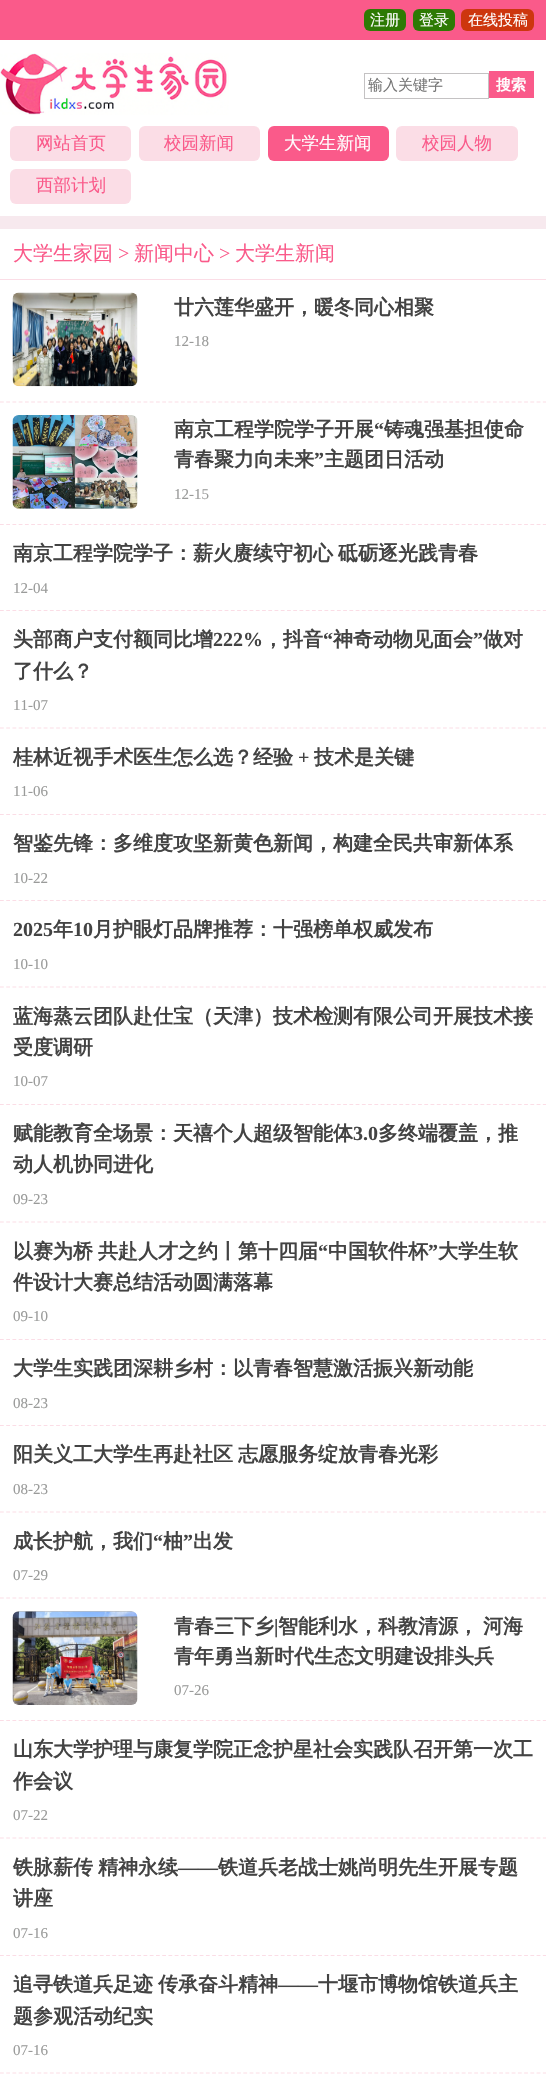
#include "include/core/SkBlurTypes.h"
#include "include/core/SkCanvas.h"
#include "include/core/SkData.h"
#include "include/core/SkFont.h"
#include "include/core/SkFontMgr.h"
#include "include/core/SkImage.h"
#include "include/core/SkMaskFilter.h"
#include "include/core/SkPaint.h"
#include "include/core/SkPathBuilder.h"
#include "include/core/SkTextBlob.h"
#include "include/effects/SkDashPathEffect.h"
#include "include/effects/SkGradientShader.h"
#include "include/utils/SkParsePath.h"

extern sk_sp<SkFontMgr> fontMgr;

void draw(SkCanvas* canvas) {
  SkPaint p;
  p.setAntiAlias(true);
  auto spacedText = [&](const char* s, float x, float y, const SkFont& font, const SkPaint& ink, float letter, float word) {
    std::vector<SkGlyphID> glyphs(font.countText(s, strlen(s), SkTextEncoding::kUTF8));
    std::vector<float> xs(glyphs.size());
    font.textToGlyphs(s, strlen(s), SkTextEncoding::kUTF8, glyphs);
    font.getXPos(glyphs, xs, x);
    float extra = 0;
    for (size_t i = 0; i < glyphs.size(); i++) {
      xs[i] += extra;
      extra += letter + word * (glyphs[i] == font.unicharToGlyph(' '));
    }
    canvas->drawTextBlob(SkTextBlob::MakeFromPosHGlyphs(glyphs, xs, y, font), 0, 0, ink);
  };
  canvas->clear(SkColorSetRGB(250, 90, 138));
  p.setColor(SkColorSetRGB(46, 122, 4));
  canvas->drawRoundRect(SkRect::MakeLTRB(364, 9, 406, 31), 6, 6, p);
  canvas->drawRoundRect(SkRect::MakeLTRB(413, 9, 455, 31), 6, 6, p);
  p.setColor(SkColorSetRGB(205, 54, 14));
  canvas->drawRoundRect(SkRect::MakeLTRB(461, 9, 534, 31), 6, 6, p);
  p.setColor(SK_ColorWHITE);
  canvas->drawRect(SkRect::MakeLTRB(0, 40, 546, 2092), p);
  canvas->drawImageRect(SkImages::DeferredFromEncodedData(SkData::MakeFromFileName("images/1.png")), SkRect::MakeLTRB(0, 53, 229, 115), SkSamplingOptions());
  p.setStyle(SkPaint::kStroke_Style);
  p.setStrokeWidth(1);
  p.setColor(SkColorSetRGB(196, 194, 195));
  canvas->drawRect(SkRect::MakeLTRB(364.5f, 73.5f, 488.5f, 98.5f), p);
  p.setStyle(SkPaint::kFill_Style);
  p.setColor(SkColorSetRGB(250, 90, 138));
  canvas->drawRect(SkRect::MakeLTRB(489, 71, 534, 98), p);
  p.setColor(SkColorSetRGB(251, 221, 230));
  canvas->drawRoundRect(SkRect::MakeLTRB(10, 126, 131, 161), 6, 6, p);
  canvas->drawRoundRect(SkRect::MakeLTRB(139, 126, 260, 161), 6, 6, p);
  p.setColor(SkColorSetRGB(250, 90, 138));
  canvas->drawRoundRect(SkRect::MakeLTRB(268, 126, 389, 161), 6, 6, p);
  p.setColor(SkColorSetRGB(251, 221, 230));
  canvas->drawRoundRect(SkRect::MakeLTRB(396, 126, 518, 161), 6, 6, p);
  canvas->drawRoundRect(SkRect::MakeLTRB(10, 169, 131, 204), 6, 6, p);
  p.setColor(SkColorSetRGB(247, 233, 238));
  canvas->drawRect(SkRect::MakeLTRB(0, 216, 546, 229), p);
  p.setColor(SkColorSetRGB(251, 221, 230));
  canvas->drawRect(SkRect::MakeLTRB(0, 279, 546, 280), p);
  p.setStyle(SkPaint::kStroke_Style);
  p.setStrokeWidth(1.2f);
  p.setPathEffect(SkDashPathEffect::Make({{3.75f, 2.49f}}, 0));
  canvas->drawPath(SkPathBuilder().moveTo(0, 402).lineTo(546, 402).detach(), p);
  p.setPathEffect(nullptr);
  canvas->drawImageRect(SkImages::DeferredFromEncodedData(SkData::MakeFromFileName("images/2.png")), SkRect::MakeLTRB(12, 292, 138, 387), SkSamplingOptions());
  p.setPathEffect(SkDashPathEffect::Make({{3.75f, 2.49f}}, 0));
  canvas->drawPath(SkPathBuilder().moveTo(0, 524.5f).lineTo(546, 524.5f).detach(), p);
  p.setPathEffect(nullptr);
  canvas->drawImageRect(SkImages::DeferredFromEncodedData(SkData::MakeFromFileName("images/3.png")), SkRect::MakeLTRB(12, 415, 138, 509), SkSamplingOptions());
  p.setPathEffect(SkDashPathEffect::Make({{3.75f, 2.49f}}, 0));
  canvas->drawPath(SkPathBuilder().moveTo(0, 610.5f).lineTo(546, 610.5f).detach(), p);
  p.setPathEffect(nullptr);
  p.setPathEffect(SkDashPathEffect::Make({{3.75f, 2.49f}}, 0));
  canvas->drawPath(SkPathBuilder().moveTo(0, 728).lineTo(546, 728).detach(), p);
  p.setPathEffect(nullptr);
  p.setPathEffect(SkDashPathEffect::Make({{3.75f, 2.49f}}, 0));
  canvas->drawPath(SkPathBuilder().moveTo(0, 814.5f).lineTo(546, 814.5f).detach(), p);
  p.setPathEffect(nullptr);
  p.setPathEffect(SkDashPathEffect::Make({{3.75f, 2.49f}}, 0));
  canvas->drawPath(SkPathBuilder().moveTo(0, 900.5f).lineTo(546, 900.5f).detach(), p);
  p.setPathEffect(nullptr);
  p.setPathEffect(SkDashPathEffect::Make({{3.75f, 2.49f}}, 0));
  canvas->drawPath(SkPathBuilder().moveTo(0, 987).lineTo(546, 987).detach(), p);
  p.setPathEffect(nullptr);
  p.setPathEffect(SkDashPathEffect::Make({{3.75f, 2.49f}}, 0));
  canvas->drawPath(SkPathBuilder().moveTo(0, 1104.5f).lineTo(546, 1104.5f).detach(), p);
  p.setPathEffect(nullptr);
  p.setPathEffect(SkDashPathEffect::Make({{3.75f, 2.49f}}, 0));
  canvas->drawPath(SkPathBuilder().moveTo(0, 1222).lineTo(546, 1222).detach(), p);
  p.setPathEffect(nullptr);
  p.setPathEffect(SkDashPathEffect::Make({{3.75f, 2.49f}}, 0));
  canvas->drawPath(SkPathBuilder().moveTo(0, 1339.5f).lineTo(546, 1339.5f).detach(), p);
  p.setPathEffect(nullptr);
  p.setPathEffect(SkDashPathEffect::Make({{3.75f, 2.49f}}, 0));
  canvas->drawPath(SkPathBuilder().moveTo(0, 1425.5f).lineTo(546, 1425.5f).detach(), p);
  p.setPathEffect(nullptr);
  p.setPathEffect(SkDashPathEffect::Make({{3.75f, 2.49f}}, 0));
  canvas->drawPath(SkPathBuilder().moveTo(0, 1512).lineTo(546, 1512).detach(), p);
  p.setPathEffect(nullptr);
  p.setPathEffect(SkDashPathEffect::Make({{3.75f, 2.49f}}, 0));
  canvas->drawPath(SkPathBuilder().moveTo(0, 1598).lineTo(546, 1598).detach(), p);
  p.setPathEffect(nullptr);
  p.setPathEffect(SkDashPathEffect::Make({{3.75f, 2.49f}}, 0));
  canvas->drawPath(SkPathBuilder().moveTo(0, 1720.5f).lineTo(546, 1720.5f).detach(), p);
  p.setPathEffect(nullptr);
  canvas->drawImageRect(SkImages::DeferredFromEncodedData(SkData::MakeFromFileName("images/4.png")), SkRect::MakeLTRB(12, 1611, 138, 1705), SkSamplingOptions());
  p.setPathEffect(SkDashPathEffect::Make({{3.75f, 2.49f}}, 0));
  canvas->drawPath(SkPathBuilder().moveTo(0, 1838).lineTo(546, 1838).detach(), p);
  p.setPathEffect(nullptr);
  p.setPathEffect(SkDashPathEffect::Make({{3.75f, 2.49f}}, 0));
  canvas->drawPath(SkPathBuilder().moveTo(0, 1955.5f).lineTo(546, 1955.5f).detach(), p);
  p.setPathEffect(nullptr);
  p.setPathEffect(SkDashPathEffect::Make({{3.75f, 2.49f}}, 0));
  canvas->drawPath(SkPathBuilder().moveTo(0, 2073).lineTo(546, 2073).detach(), p);
  p.setPathEffect(nullptr);
  SkFont font1(fontMgr->matchFamilyStyle("WenQuanYi Zen Hei", SkFontStyle(500, SkFontStyle::kNormal_Width, SkFontStyle::kUpright_Slant)), 15);
  font1.setSubpixel(true);
  p.setStyle(SkPaint::kFill_Style);
  p.setColor(SK_ColorWHITE);
  canvas->drawString("注册", 370, 25, font1, p);
  canvas->drawString("登录", 419, 25, font1, p);
  canvas->drawString("在线投稿", 468, 25, font1, p);
  canvas->save();
  canvas->clipRect(SkRect::MakeLTRB(368, 75, 485, 96));
  p.setColor(SkColorSetRGB(117, 117, 117));
  canvas->drawString("输入关键字", 368, 90, font1, p);
  canvas->restore();
  SkFont font2(fontMgr->matchFamilyStyle("WenQuanYi Zen Hei", SkFontStyle::Bold()), 15);
  font2.setSubpixel(true);
  p.setColor(SK_ColorWHITE);
  canvas->drawString("搜索", 496, 90, font2, p);
  SkFont font3(fontMgr->matchFamilyStyle("WenQuanYi Zen Hei", SkFontStyle(500, SkFontStyle::kNormal_Width, SkFontStyle::kUpright_Slant)), 17.5f);
  font3.setSubpixel(true);
  p.setColor(SkColorSetRGB(250, 90, 138));
  canvas->drawString("网站首页", 36, 149, font3, p);
  canvas->drawString("校园新闻", 164, 149, font3, p);
  p.setColor(SK_ColorWHITE);
  canvas->drawString("大学生新闻", 284, 149, font3, p);
  p.setColor(SkColorSetRGB(250, 90, 138));
  canvas->drawString("校园人物", 422, 149, font3, p);
  canvas->drawString("西部计划", 36, 191, font3, p);
  SkFont font4(fontMgr->matchFamilyStyle("WenQuanYi Zen Hei", SkFontStyle(500, SkFontStyle::kNormal_Width, SkFontStyle::kUpright_Slant)), 20);
  font4.setSubpixel(true);
  canvas->drawString("大学生家园", 13, 260, font4, p);
  SkFont font5(fontMgr->matchFamilyStyle("Liberation Serif", SkFontStyle::Normal()), 20);
  font5.setSubpixel(true);
  canvas->drawString(">", 118, 260, font5, p);
  canvas->drawString("新闻中心", 134, 260, font4, p);
  canvas->drawString(">", 219, 260, font5, p);
  canvas->drawString("大学生新闻", 235, 260, font4, p);
  SkFont font6(fontMgr->matchFamilyStyle("WenQuanYi Zen Hei", SkFontStyle::Bold()), 20);
  font6.setSubpixel(true);
  p.setColor(SkColorSetRGB(67, 67, 67));
  canvas->drawString("廿六莲华盛开，暖冬同心相聚", 174, 314, font6, p);
  SkFont font7(fontMgr->matchFamilyStyle("Liberation Serif", SkFontStyle::Normal()), 15);
  font7.setSubpixel(true);
  p.setColor(SkColorSetRGB(154, 155, 154));
  canvas->drawString("12-18", 174, 346, font7, p);
  p.setColor(SkColorSetRGB(67, 67, 67));
  canvas->drawString("南京工程学院学子开展", 174, 436, font6, p);
  SkFont font8(fontMgr->matchFamilyStyle("Liberation Serif", SkFontStyle::Bold()), 20);
  font8.setSubpixel(true);
  canvas->drawString("“", 374, 436, font8, p);
  canvas->drawString("铸魂强基担使命", 384, 436, font6, p);
  canvas->drawString("青春聚力向未来", 174, 466, font6, p);
  canvas->drawString("”", 314, 466, font8, p);
  canvas->drawString("主题团日活动", 324, 466, font6, p);
  p.setColor(SkColorSetRGB(154, 155, 154));
  canvas->drawString("12-15", 174, 499, font7, p);
  p.setColor(SkColorSetRGB(67, 67, 67));
  spacedText("南京工程学院学子：薪火赓续守初心 砥砺逐光践青春", 13, 560, font6, p, 0, -1);
  p.setColor(SkColorSetRGB(154, 155, 154));
  canvas->drawString("12-04", 13, 593, font7, p);
  p.setColor(SkColorSetRGB(67, 67, 67));
  canvas->drawString("头部商户支付额同比增", 13, 646, font6, p);
  canvas->drawString("222%", 213, 646, font8, p);
  canvas->drawString("，抖音", 263, 646, font6, p);
  canvas->drawString("“", 323, 646, font8, p);
  canvas->drawString("神奇动物见面会", 333, 646, font6, p);
  canvas->drawString("”", 473, 646, font8, p);
  canvas->drawString("做对", 483, 646, font6, p);
  canvas->drawString("了什么？", 13, 678, font6, p);
  p.setColor(SkColorSetRGB(154, 155, 154));
  canvas->drawString("11-07", 13, 710, font7, p);
  p.setColor(SkColorSetRGB(67, 67, 67));
  canvas->drawString("桂林近视手术医生怎么选？经验", 13, 764, font6, p);
  canvas->drawString("+", 298, 764, font8, p);
  canvas->drawString("技术是关键", 314, 764, font6, p);
  p.setColor(SkColorSetRGB(154, 155, 154));
  canvas->drawString("11-06", 13, 796, font7, p);
  p.setColor(SkColorSetRGB(67, 67, 67));
  canvas->drawString("智鉴先锋：多维度攻坚新黄色新闻，构建全民共审新体系", 13, 850, font6, p);
  p.setColor(SkColorSetRGB(154, 155, 154));
  canvas->drawString("10-22", 13, 883, font7, p);
  p.setColor(SkColorSetRGB(67, 67, 67));
  canvas->drawString("2025", 13, 936, font8, p);
  canvas->drawString("年", 53, 936, font6, p);
  canvas->drawString("10", 73, 936, font8, p);
  canvas->drawString("月护眼灯品牌推荐：十强榜单权威发布", 93, 936, font6, p);
  p.setColor(SkColorSetRGB(154, 155, 154));
  canvas->drawString("10-10", 13, 969, font7, p);
  p.setColor(SkColorSetRGB(67, 67, 67));
  canvas->drawString("蓝海蒸云团队赴仕宝（天津）技术检测有限公司开展技术接", 13, 1023, font6, p);
  canvas->drawString("受度调研", 13, 1054, font6, p);
  p.setColor(SkColorSetRGB(154, 155, 154));
  canvas->drawString("10-07", 13, 1086, font7, p);
  p.setColor(SkColorSetRGB(67, 67, 67));
  canvas->drawString("赋能教育全场景：天禧个人超级智能体", 13, 1140, font6, p);
  canvas->drawString("3.0", 353, 1140, font8, p);
  canvas->drawString("多终端覆盖，推", 378, 1140, font6, p);
  canvas->drawString("动人机协同进化", 13, 1171, font6, p);
  p.setColor(SkColorSetRGB(154, 155, 154));
  canvas->drawString("09-23", 13, 1204, font7, p);
  p.setColor(SkColorSetRGB(67, 67, 67));
  spacedText("以赛为桥 共赴人才之约丨第十四届", 13, 1258, font6, p, 0, -1);
  canvas->drawString("“", 318, 1258, font8, p);
  canvas->drawString("中国软件杯", 328, 1258, font6, p);
  canvas->drawString("”", 428, 1258, font8, p);
  canvas->drawString("大学生软", 438, 1258, font6, p);
  canvas->drawString("件设计大赛总结活动圆满落幕", 13, 1289, font6, p);
  p.setColor(SkColorSetRGB(154, 155, 154));
  canvas->drawString("09-10", 13, 1321, font7, p);
  p.setColor(SkColorSetRGB(67, 67, 67));
  canvas->drawString("大学生实践团深耕乡村：以青春智慧激活振兴新动能", 13, 1375, font6, p);
  p.setColor(SkColorSetRGB(154, 155, 154));
  canvas->drawString("08-23", 13, 1408, font7, p);
  p.setColor(SkColorSetRGB(67, 67, 67));
  spacedText("阳关义工大学生再赴社区 志愿服务绽放青春光彩", 13, 1461, font6, p, 0, -1);
  p.setColor(SkColorSetRGB(154, 155, 154));
  canvas->drawString("08-23", 13, 1494, font7, p);
  p.setColor(SkColorSetRGB(67, 67, 67));
  canvas->drawString("成长护航，我们", 13, 1548, font6, p);
  canvas->drawString("“", 153, 1548, font8, p);
  canvas->drawString("柚", 163, 1548, font6, p);
  canvas->drawString("”", 183, 1548, font8, p);
  canvas->drawString("出发", 193, 1548, font6, p);
  p.setColor(SkColorSetRGB(154, 155, 154));
  canvas->drawString("07-29", 13, 1580, font7, p);
  p.setColor(SkColorSetRGB(67, 67, 67));
  canvas->drawString("青春三下乡", 174, 1633, font6, p);
  canvas->drawString("|", 274, 1633, font8, p);
  spacedText("智能利水，科教清源， 河海", 278, 1633, font6, p, 0, -1);
  canvas->drawString("青年勇当新时代生态文明建设排头兵", 174, 1663, font6, p);
  p.setColor(SkColorSetRGB(154, 155, 154));
  canvas->drawString("07-26", 174, 1695, font7, p);
  p.setColor(SkColorSetRGB(67, 67, 67));
  canvas->drawString("山东大学护理与康复学院正念护星社会实践队召开第一次工", 13, 1756, font6, p);
  canvas->drawString("作会议", 13, 1788, font6, p);
  p.setColor(SkColorSetRGB(154, 155, 154));
  canvas->drawString("07-22", 13, 1820, font7, p);
  p.setColor(SkColorSetRGB(67, 67, 67));
  spacedText("铁脉薪传 精神永续", 13, 1874, font6, p, 0, -1);
  canvas->drawString("——", 178, 1874, font8, p);
  canvas->drawString("铁道兵老战士姚尚明先生开展专题", 218, 1874, font6, p);
  canvas->drawString("讲座", 13, 1905, font6, p);
  p.setColor(SkColorSetRGB(154, 155, 154));
  canvas->drawString("07-16", 13, 1938, font7, p);
  p.setColor(SkColorSetRGB(67, 67, 67));
  spacedText("追寻铁道兵足迹 传承奋斗精神", 13, 1991, font6, p, 0, -1);
  canvas->drawString("——", 278, 1991, font8, p);
  canvas->drawString("十堰市博物馆铁道兵主", 318, 1991, font6, p);
  canvas->drawString("题参观活动纪实", 13, 2023, font6, p);
  p.setColor(SkColorSetRGB(154, 155, 154));
  canvas->drawString("07-16", 13, 2055, font7, p);
}
